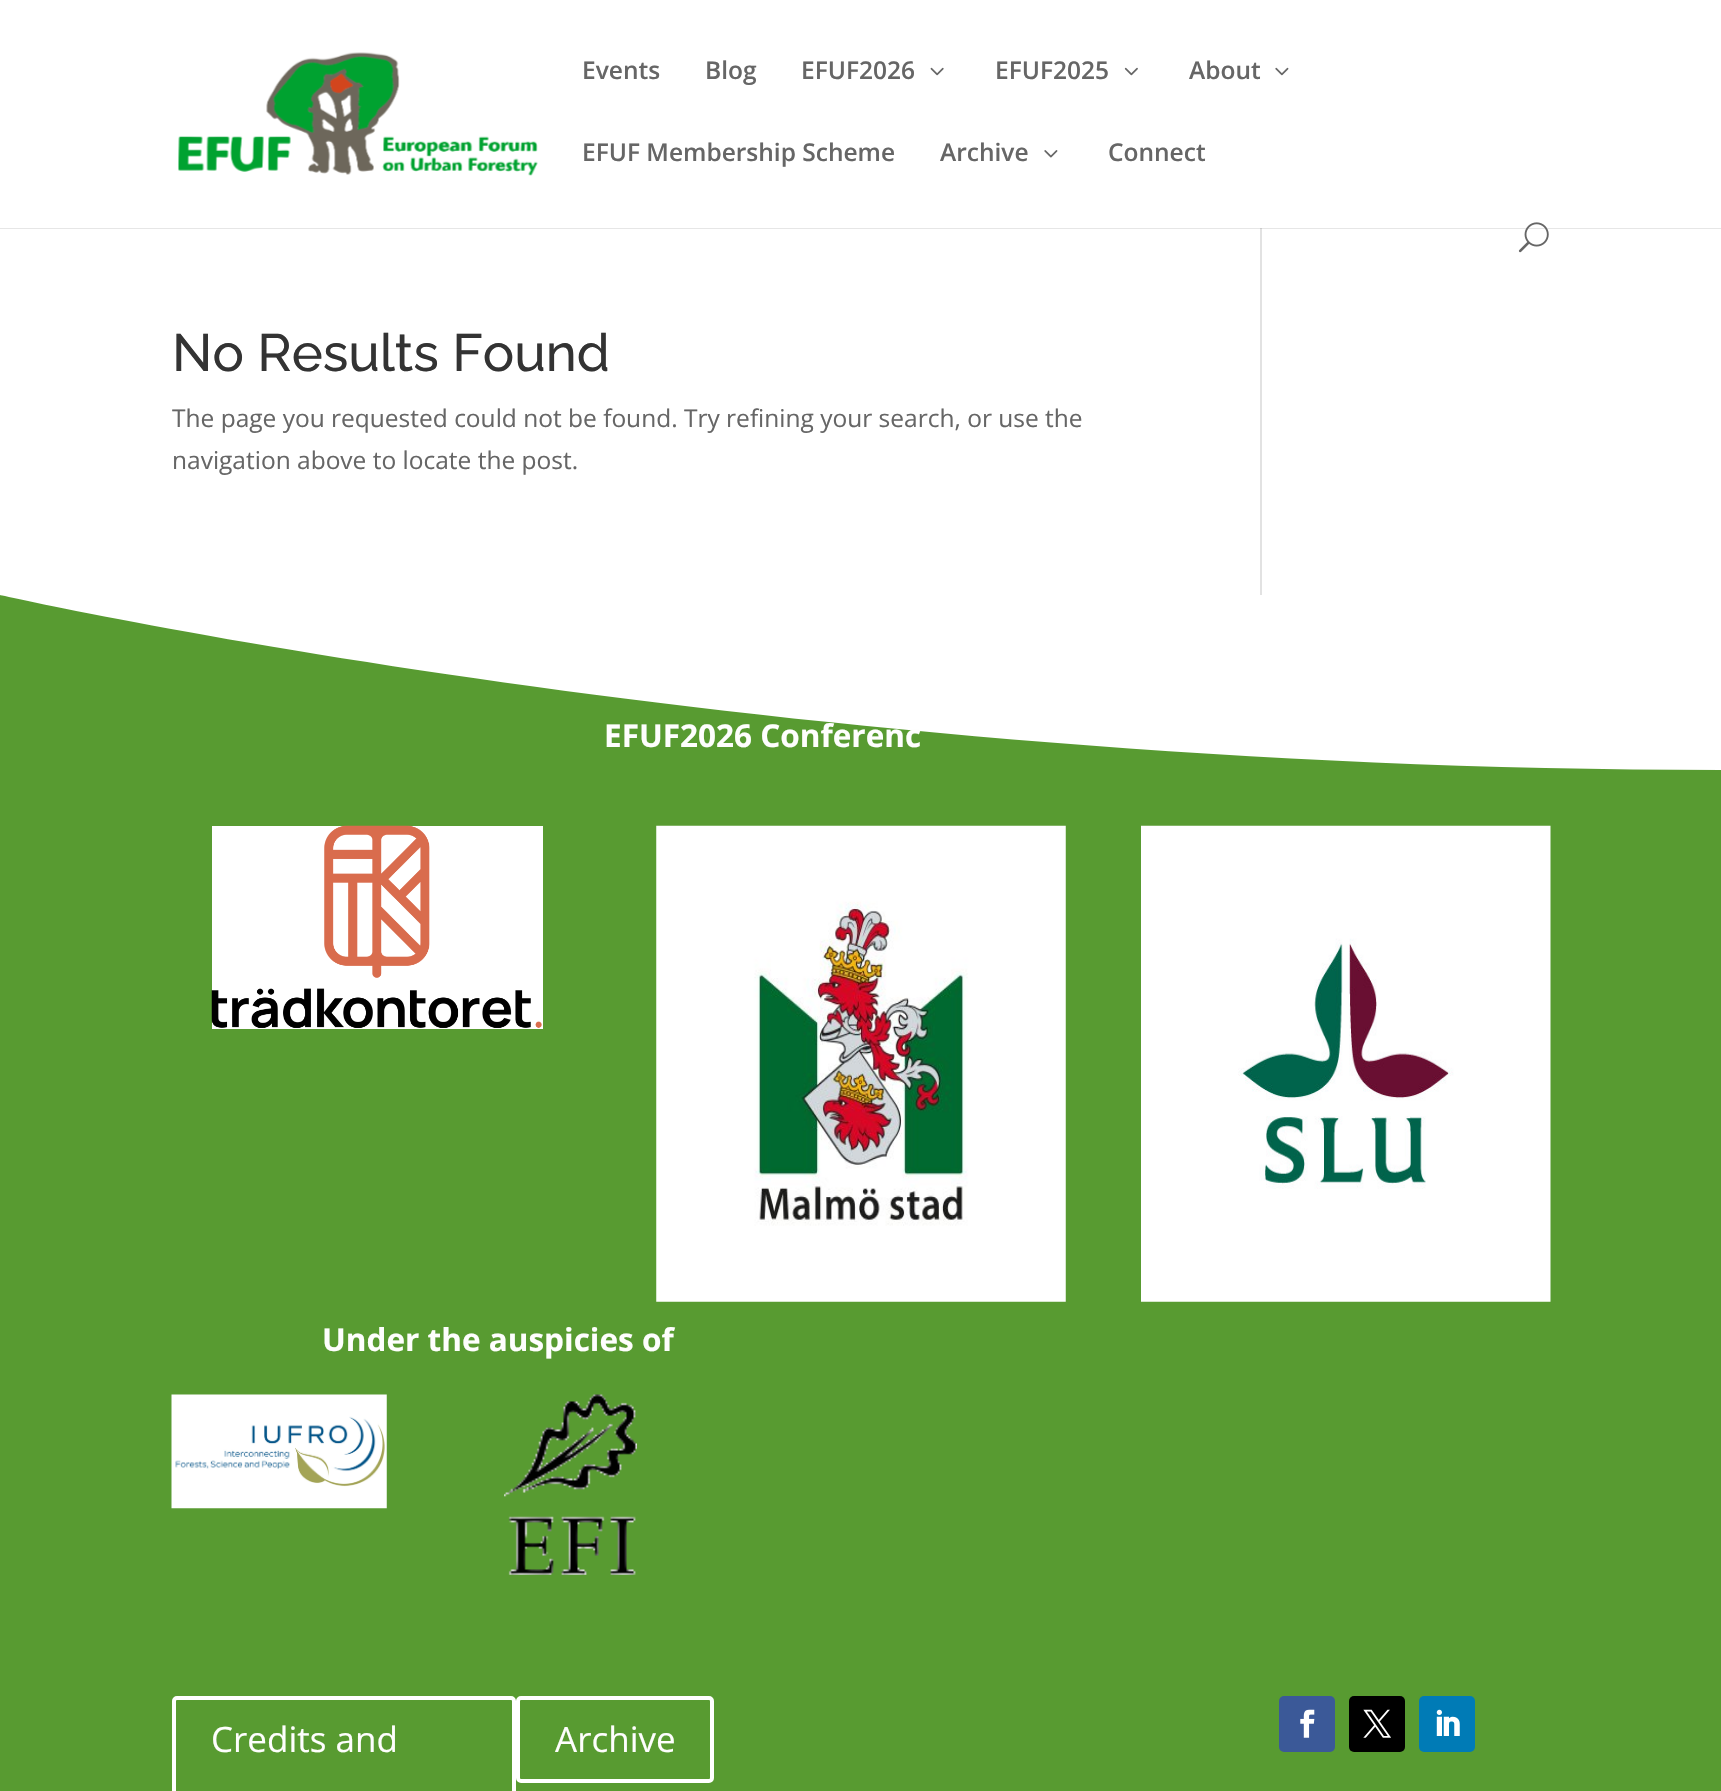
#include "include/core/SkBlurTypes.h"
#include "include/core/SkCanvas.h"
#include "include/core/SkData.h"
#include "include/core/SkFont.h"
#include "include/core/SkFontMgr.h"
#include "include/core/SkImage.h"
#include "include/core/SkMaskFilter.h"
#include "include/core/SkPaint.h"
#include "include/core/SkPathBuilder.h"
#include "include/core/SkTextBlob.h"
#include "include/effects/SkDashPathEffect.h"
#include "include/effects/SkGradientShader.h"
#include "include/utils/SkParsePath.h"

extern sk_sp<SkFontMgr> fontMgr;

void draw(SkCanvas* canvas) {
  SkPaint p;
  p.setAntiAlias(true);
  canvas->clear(SK_ColorWHITE);
  p.setColor(SkColorSetRGB(230, 230, 230));
  canvas->drawRect(SkRect::MakeLTRB(0, 228, 1721, 229), p);
  p.setColor(SkColorSetRGB(226, 226, 226));
  canvas->drawRect(SkRect::MakeLTRB(1260, 226, 1262, 595), p);
  p.setColor(SK_ColorWHITE);
  canvas->drawRect(SkRect::MakeLTRB(1260, 226, 1262, 228), p);
  canvas->drawImageRect(SkImages::DeferredFromEncodedData(SkData::MakeFromFileName("images/1.png")), SkRect::MakeLTRB(178, 52, 538, 176), SkSamplingOptions());
  canvas->drawImageRect(SkImages::DeferredFromEncodedData(SkData::MakeFromFileName("images/2.png")), SkRect::MakeLTRB(930, 67, 944, 76), SkSamplingOptions());
  canvas->drawImageRect(SkImages::DeferredFromEncodedData(SkData::MakeFromFileName("images/3.png")), SkRect::MakeLTRB(1124, 67, 1138, 76), SkSamplingOptions());
  canvas->drawImageRect(SkImages::DeferredFromEncodedData(SkData::MakeFromFileName("images/4.png")), SkRect::MakeLTRB(1275, 67, 1289, 76), SkSamplingOptions());
  canvas->drawImageRect(SkImages::DeferredFromEncodedData(SkData::MakeFromFileName("images/5.png")), SkRect::MakeLTRB(1044, 150, 1058, 158), SkSamplingOptions());
  canvas->drawImageRect(SkImages::DeferredFromEncodedData(SkData::MakeFromFileName("images/6.png")), SkRect::MakeLTRB(1518, 222, 1549, 253), SkSamplingOptions());
  p.setColor(SkColorSetRGB(203, 203, 203));
  canvas->drawRect(SkRect::MakeLTRB(1260, 228, 1262, 229), p);
  p.setColor(SkColorSetRGB(88, 155, 49));
  canvas->drawRect(SkRect::MakeLTRB(0, 595, 1721, 1791), p);
  p.setColor(SK_ColorWHITE);
  canvas->drawPath(SkPathBuilder().moveTo(0, 595).cubicTo(0, 595, 771, 770, 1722, 770).lineTo(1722, 595).close().detach(), p);
  canvas->drawRect(SkRect::MakeLTRB(212, 826, 543, 1029), p);
  canvas->drawImageRect(SkImages::DeferredFromEncodedData(SkData::MakeFromFileName("images/7.png")), SkRect::MakeLTRB(211, 825, 542, 1028), SkSamplingOptions());
  canvas->drawImageRect(SkImages::DeferredFromEncodedData(SkData::MakeFromFileName("images/8.png")), SkRect::MakeLTRB(656, 825, 1066, 1302), SkSamplingOptions());
  canvas->drawImageRect(SkImages::DeferredFromEncodedData(SkData::MakeFromFileName("images/9.png")), SkRect::MakeLTRB(1141, 825, 1551, 1302), SkSamplingOptions());
  canvas->drawImageRect(SkImages::DeferredFromEncodedData(SkData::MakeFromFileName("images/10.png")), SkRect::MakeLTRB(171, 1394, 387, 1509), SkSamplingOptions());
  canvas->drawImageRect(SkImages::DeferredFromEncodedData(SkData::MakeFromFileName("images/11.png")), SkRect::MakeLTRB(504, 1394, 637, 1575), SkSamplingOptions());
  p.setStyle(SkPaint::kStroke_Style);
  p.setStrokeWidth(4);
  canvas->drawRoundRect(SkRect::MakeLTRB(174, 1698, 514, 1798), 3, 3, p);
  canvas->drawRoundRect(SkRect::MakeLTRB(518, 1698, 712, 1781), 3, 3, p);
  p.setStyle(SkPaint::kFill_Style);
  p.setColor(SkColorSetRGB(59, 89, 152));
  canvas->drawRoundRect(SkRect::MakeLTRB(1279, 1696, 1335, 1752), 5, 5, p);
  canvas->drawImageRect(SkImages::DeferredFromEncodedData(SkData::MakeFromFileName("images/12.png")), SkRect::MakeLTRB(1300, 1709, 1315, 1738), SkSamplingOptions());
  p.setColor(SK_ColorBLACK);
  canvas->drawRoundRect(SkRect::MakeLTRB(1349, 1696, 1405, 1752), 5, 5, p);
  canvas->drawImageRect(SkImages::DeferredFromEncodedData(SkData::MakeFromFileName("images/13.png")), SkRect::MakeLTRB(1363, 1709, 1391, 1738), SkSamplingOptions());
  p.setColor(SkColorSetRGB(0, 123, 182));
  canvas->drawRoundRect(SkRect::MakeLTRB(1419, 1696, 1475, 1752), 5, 5, p);
  canvas->drawImageRect(SkImages::DeferredFromEncodedData(SkData::MakeFromFileName("images/14.png")), SkRect::MakeLTRB(1436, 1709, 1460, 1736), SkSamplingOptions());
  SkFont font1(fontMgr->matchFamilyStyle("Open Sans", SkFontStyle(600, SkFontStyle::kNormal_Width, SkFontStyle::kUpright_Slant)), 24.5f);
  font1.setSubpixel(true);
  p.setColor(SkColorSetRGB(102, 102, 102));
  canvas->drawString("Events", 582, 79, font1, p);
  canvas->drawString("Blog", 705, 79, font1, p);
  canvas->drawString("EFUF2026", 801, 79, font1, p);
  canvas->drawString("EFUF2025", 995, 79, font1, p);
  canvas->drawString("About", 1189, 79, font1, p);
  canvas->drawString("EFUF Membership Scheme", 582, 161, font1, p);
  canvas->drawString("Archive", 940, 161, font1, p);
  canvas->drawString("Connect", 1108, 161, font1, p);
  SkFont font2(fontMgr->matchFamilyStyle("Raleway", SkFontStyle(500, SkFontStyle::kNormal_Width, SkFontStyle::kUpright_Slant)), 52.5f);
  font2.setSubpixel(true);
  p.setColor(SkColorSetRGB(51, 51, 51));
  canvas->drawString("No Results Found", 172, 371, font2, p);
  SkFont font3(fontMgr->matchFamilyStyle("Open Sans", SkFontStyle::Normal()), 24.5f);
  font3.setSubpixel(true);
  p.setColor(SkColorSetRGB(102, 102, 102));
  canvas->drawString("The page you requested could not be found. Try refining your search, or use the", 172, 427, font3, p);
  canvas->drawString("navigation above to locate the post.", 172, 469, font3, p);
  SkFont font4(fontMgr->matchFamilyStyle("Open Sans", SkFontStyle::Bold()), 31.5f);
  font4.setSubpixel(true);
  p.setColor(SkColorSetRGB(254, 254, 253));
  canvas->drawString("EFUF2026 Conferenc", 604, 747, font4, p);
  canvas->drawString("Under the auspicies of", 322, 1351, font4, p);
  SkFont font5(fontMgr->matchFamilyStyle("Open Sans", SkFontStyle::Normal()), 35);
  font5.setSubpixel(true);
  canvas->drawString("Credits and", 211, 1752, font5, p);
  canvas->drawString("Archive", 555, 1752, font5, p);
}
